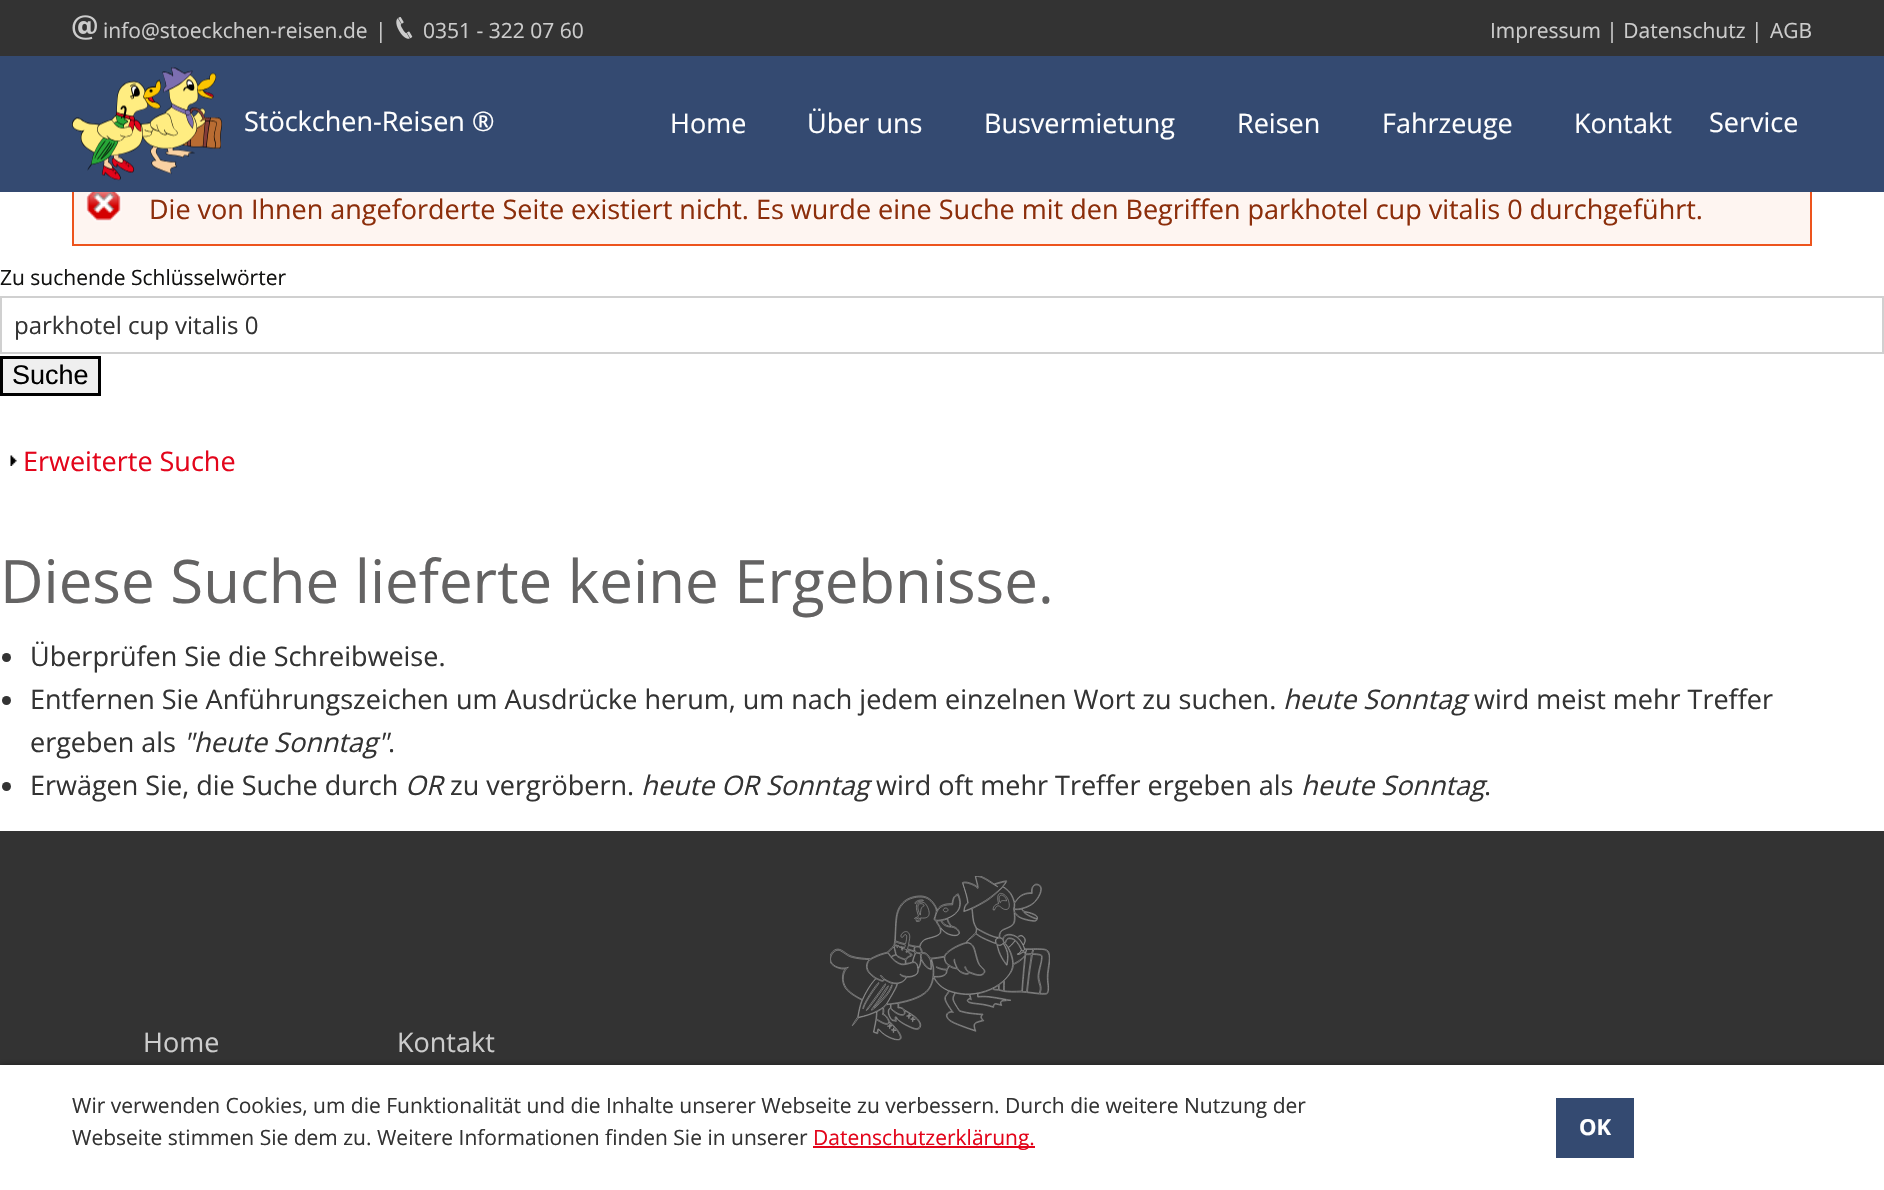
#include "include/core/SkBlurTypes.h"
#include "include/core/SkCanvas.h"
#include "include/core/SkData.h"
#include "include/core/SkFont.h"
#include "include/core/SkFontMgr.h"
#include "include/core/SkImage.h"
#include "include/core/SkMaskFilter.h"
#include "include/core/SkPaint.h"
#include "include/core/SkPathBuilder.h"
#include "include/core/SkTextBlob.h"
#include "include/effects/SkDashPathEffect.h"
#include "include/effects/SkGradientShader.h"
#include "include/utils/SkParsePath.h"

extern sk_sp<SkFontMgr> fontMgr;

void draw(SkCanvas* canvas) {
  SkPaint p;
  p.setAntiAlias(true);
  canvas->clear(SK_ColorWHITE);
  p.setColor(SkColorSetRGB(51, 51, 51));
  canvas->drawRect(SkRect::MakeLTRB(0, 0, 1884, 56), p);
  canvas->drawImageRect(SkImages::DeferredFromEncodedData(SkData::MakeFromFileName("images/1.png")), SkRect::MakeLTRB(72, 15, 97, 40), SkSamplingOptions());
  canvas->drawImageRect(SkImages::DeferredFromEncodedData(SkData::MakeFromFileName("images/2.png")), SkRect::MakeLTRB(396, 17, 413, 39), SkSamplingOptions());
  p.setColor(SkColorSetRGB(254, 245, 241));
  canvas->drawRect(SkRect::MakeLTRB(74, 192, 1810, 244), p);
  canvas->drawImageRect(SkImages::DeferredFromEncodedData(SkData::MakeFromFileName("images/4.png")), SkRect::MakeLTRB(85, 192, 122, 222), SkSamplingOptions());
  p.setStyle(SkPaint::kStroke_Style);
  p.setStrokeWidth(2);
  p.setColor(SkColorSetRGB(237, 84, 29));
  canvas->drawRect(SkRect::MakeLTRB(73, 174, 1811, 245), p);
  p.setStyle(SkPaint::kFill_Style);
  p.setColor(SkColorSetRGB(52, 74, 113));
  canvas->drawRect(SkRect::MakeLTRB(0, 56, 1884, 192), p);
  canvas->drawImageRect(SkImages::DeferredFromEncodedData(SkData::MakeFromFileName("images/3.png")), SkRect::MakeLTRB(72, 67, 222, 181), SkSamplingOptions());
  p.setStyle(SkPaint::kStroke_Style);
  p.setColor(SkColorSetRGB(208, 208, 208));
  canvas->drawRect(SkRect::MakeLTRB(1, 297, 1883, 353), p);
  p.setStyle(SkPaint::kFill_Style);
  p.setColor(SkColorSetRGB(239, 239, 239));
  canvas->drawRect(SkRect::MakeLTRB(1.5f, 357.5f, 99.5f, 394.5f), p);
  p.setStyle(SkPaint::kStroke_Style);
  p.setStrokeWidth(3);
  p.setColor(SK_ColorBLACK);
  canvas->drawRect(SkRect::MakeLTRB(1.5f, 357.5f, 99.5f, 394.5f), p);
  canvas->drawImageRect(SkImages::DeferredFromEncodedData(SkData::MakeFromFileName("images/5.png")), SkRect::MakeLTRB(10, 455, 17, 466), SkSamplingOptions());
  p.setStyle(SkPaint::kFill_Style);
  p.setColor(SkColorSetRGB(51, 51, 51));
  canvas->drawCircle(6.5f, 657.5f, 4.5f, p);
  canvas->drawCircle(6.5f, 700.5f, 4.5f, p);
  canvas->drawCircle(6.5f, 786.5f, 4.5f, p);
  canvas->drawRect(SkRect::MakeLTRB(0, 831, 1884, 1065), p);
  canvas->drawImageRect(SkImages::DeferredFromEncodedData(SkData::MakeFromFileName("images/6.png")), SkRect::MakeLTRB(830, 876, 1050, 1041), SkSamplingOptions());
  p.setColor(SkColorSetARGB(102, 0, 0, 0));
  p.setMaskFilter(SkMaskFilter::MakeBlur(kNormal_SkBlurStyle, 3));
  canvas->drawRect(SkRect::MakeLTRB(0, 1065, 1884, 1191), p);
  p.setMaskFilter(nullptr);
  p.setColor(SK_ColorWHITE);
  canvas->drawRect(SkRect::MakeLTRB(0, 1065, 1884, 1190), p);
  p.setColor(SkColorSetRGB(227, 5, 27));
  canvas->drawRect(SkRect::MakeLTRB(813, 1146, 1035, 1148), p);
  p.setColor(SkColorSetRGB(52, 74, 113));
  canvas->drawRect(SkRect::MakeLTRB(1556, 1098, 1634, 1158), p);
  SkFont font1(fontMgr->matchFamilyStyle("Open Sans", SkFontStyle::Normal()), 21);
  font1.setSubpixel(true);
  p.setColor(SkColorSetRGB(204, 204, 204));
  canvas->drawString("info@stoeckchen-reisen.de", 103, 38, font1, p);
  canvas->drawString("|", 375, 38, font1, p);
  canvas->drawString("0351 - 322 07 60", 423, 38, font1, p);
  canvas->drawString("Impressum | Datenschutz |", 1490, 38, font1, p);
  canvas->drawString("AGB", 1770, 38, font1, p);
  SkFont font2(fontMgr->matchFamilyStyle("Open Sans", SkFontStyle::Normal()), 27);
  font2.setSubpixel(true);
  p.setColor(SK_ColorWHITE);
  canvas->drawString("Stöckchen-Reisen ®", 244, 131, font2, p);
  canvas->drawString("Home", 670, 133, font2, p);
  canvas->drawString("Über uns", 807, 133, font2, p);
  canvas->drawString("Busvermietung", 984, 133, font2, p);
  canvas->drawString("Reisen", 1237, 133, font2, p);
  canvas->drawString("Fahrzeuge", 1382, 133, font2, p);
  canvas->drawString("Kontakt", 1574, 133, font2, p);
  canvas->drawString("Service", 1709, 132, font2, p);
  p.setColor(SkColorSetRGB(140, 46, 11));
  canvas->drawString("Die von Ihnen angeforderte Seite existiert nicht. Es wurde eine Suche mit den Begriffen parkhotel cup vitalis 0 durchgeführt.", 149, 219, font2, p);
  p.setColor(SkColorSetRGB(18, 18, 17));
  canvas->drawString("Zu suchende Schlüsselwörter", 0, 285, font1, p);
  SkFont font3(fontMgr->matchFamilyStyle("Open Sans", SkFontStyle::Normal()), 24);
  font3.setSubpixel(true);
  p.setColor(SkColorSetRGB(51, 51, 51));
  canvas->drawString("parkhotel cup vitalis 0", 14, 334, font3, p);
  SkFont font4(fontMgr->matchFamilyStyle("Liberation Sans", SkFontStyle::Normal()), 27);
  font4.setSubpixel(true);
  p.setColor(SK_ColorBLACK);
  canvas->drawString("Suche", 12, 384, font4, p);
  p.setColor(SkColorSetRGB(227, 5, 27));
  canvas->drawString("Erweiterte Suche", 23, 471, font2, p);
  SkFont font5(fontMgr->matchFamilyStyle("Open Sans", SkFontStyle::Normal()), 60);
  font5.setSubpixel(true);
  p.setColor(SkColorSetRGB(100, 99, 99));
  canvas->drawString("Diese Suche lieferte keine Ergebnisse.", 0, 603, font5, p);
  p.setColor(SkColorSetRGB(51, 51, 51));
  canvas->drawString("Überprüfen Sie die Schreibweise.", 30, 666, font2, p);
  canvas->drawString("Entfernen Sie Anführungszeichen um Ausdrücke herum, um nach jedem einzelnen Wort zu suchen.", 30, 709, font2, p);
  SkFont font6(fontMgr->matchFamilyStyle("Open Sans", SkFontStyle::Italic()), 27);
  font6.setSubpixel(true);
  canvas->drawString("heute Sonntag", 1283, 709, font6, p);
  canvas->drawString("wird meist mehr Treffer", 1474, 709, font2, p);
  canvas->drawString("ergeben als", 30, 752, font2, p);
  canvas->drawString("\"heute Sonntag\"", 183, 752, font6, p);
  canvas->drawString(".", 388, 752, font2, p);
  canvas->drawString("Erwägen Sie, die Suche durch", 30, 795, font2, p);
  canvas->drawString("OR", 405, 795, font6, p);
  canvas->drawString("zu vergröbern.", 450, 795, font2, p);
  canvas->drawString("heute OR Sonntag", 641, 795, font6, p);
  canvas->drawString("wird oft mehr Treffer ergeben als", 876, 795, font2, p);
  canvas->drawString("heute Sonntag", 1301, 795, font6, p);
  canvas->drawString(".", 1484, 795, font2, p);
  p.setColor(SkColorSetRGB(204, 204, 204));
  canvas->drawString("Home", 143, 1052, font2, p);
  canvas->drawString("Kontakt", 397, 1052, font2, p);
  p.setColor(SkColorSetRGB(51, 51, 51));
  canvas->drawString("Wir verwenden Cookies, um die Funktionalität und die Inhalte unserer Webseite zu verbessern. Durch die weitere Nutzung der", 72, 1113, font1, p);
  canvas->drawString("Webseite stimmen Sie dem zu. Weitere Informationen finden Sie in unserer", 72, 1145, font1, p);
  p.setColor(SkColorSetRGB(227, 5, 27));
  canvas->drawString("Datenschutzerklärung.", 813, 1145, font1, p);
  SkFont font7(fontMgr->matchFamilyStyle("Open Sans", SkFontStyle::Bold()), 22);
  font7.setSubpixel(true);
  p.setColor(SK_ColorWHITE);
  canvas->drawString("OK", 1579, 1135, font7, p);
}
